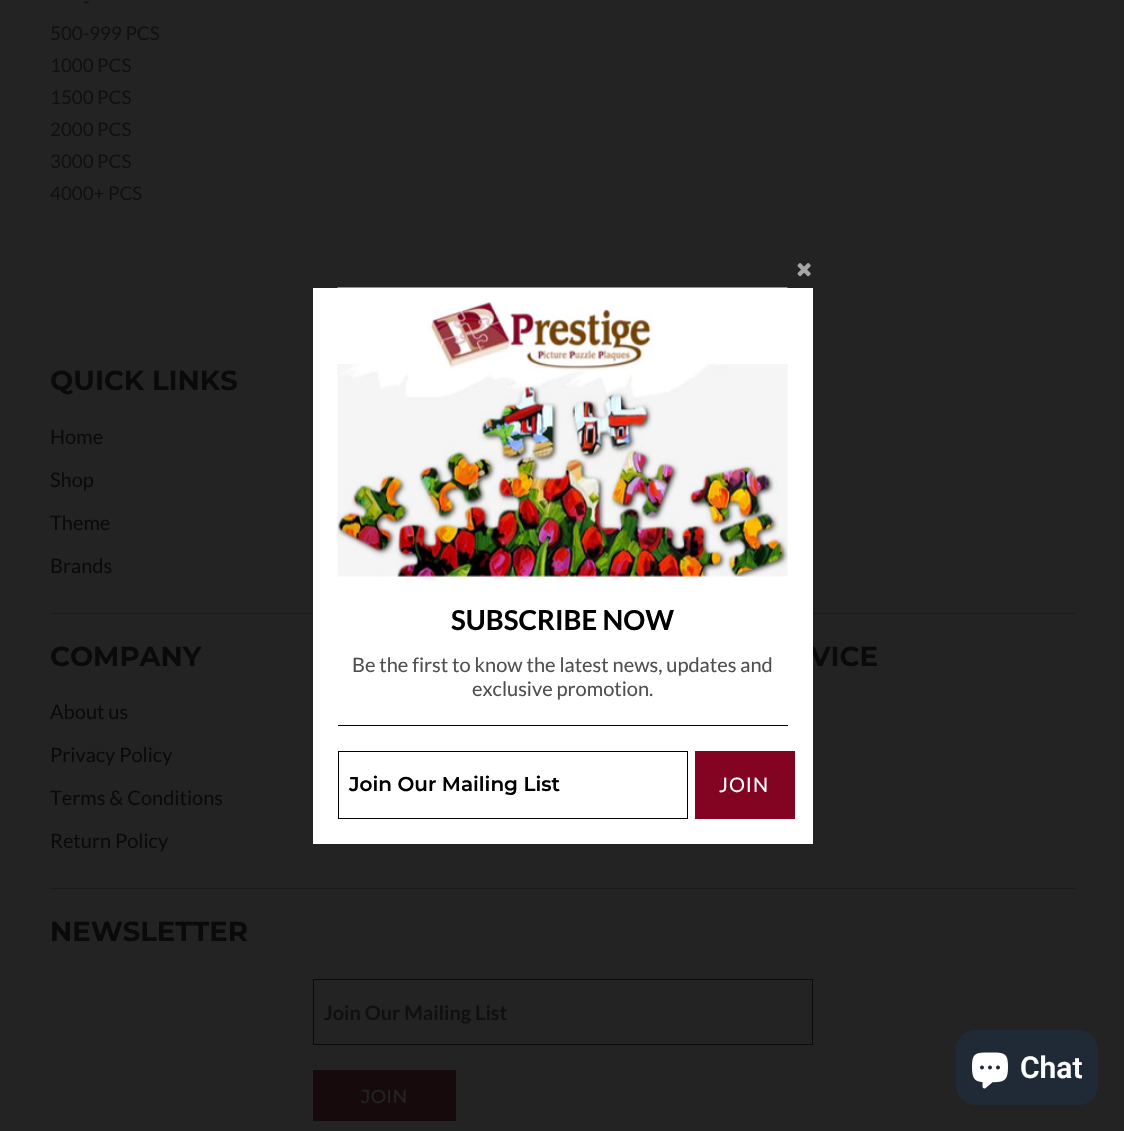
#include "include/core/SkBlurTypes.h"
#include "include/core/SkCanvas.h"
#include "include/core/SkData.h"
#include "include/core/SkFont.h"
#include "include/core/SkFontMgr.h"
#include "include/core/SkImage.h"
#include "include/core/SkMaskFilter.h"
#include "include/core/SkPaint.h"
#include "include/core/SkPathBuilder.h"
#include "include/core/SkTextBlob.h"
#include "include/effects/SkDashPathEffect.h"
#include "include/effects/SkGradientShader.h"
#include "include/utils/SkParsePath.h"

extern sk_sp<SkFontMgr> fontMgr;

void draw(SkCanvas* canvas) {
  SkPaint p;
  p.setAntiAlias(true);
  auto spacedText = [&](const char* s, float x, float y, const SkFont& font, const SkPaint& ink, float letter, float word) {
    std::vector<SkGlyphID> glyphs(font.countText(s, strlen(s), SkTextEncoding::kUTF8));
    std::vector<float> xs(glyphs.size());
    font.textToGlyphs(s, strlen(s), SkTextEncoding::kUTF8, glyphs);
    font.getXPos(glyphs, xs, x);
    float extra = 0;
    for (size_t i = 0; i < glyphs.size(); i++) {
      xs[i] += extra;
      extra += letter + word * (glyphs[i] == font.unicharToGlyph(' '));
    }
    canvas->drawTextBlob(SkTextBlob::MakeFromPosHGlyphs(glyphs, xs, y, font), 0, 0, ink);
  };
  canvas->clear(SkColorSetRGB(35, 35, 35));
  p.setColor(SkColorSetRGB(26, 27, 27));
  canvas->drawRect(SkRect::MakeLTRB(50, 613, 1075, 614), p);
  canvas->drawRect(SkRect::MakeLTRB(50, 888, 1075, 889), p);
  p.setStyle(SkPaint::kStroke_Style);
  p.setStrokeWidth(1);
  p.setColor(SkColorSetRGB(10, 10, 10));
  canvas->drawRect(SkRect::MakeLTRB(313.5f, 979.5f, 812.5f, 1044.5f), p);
  p.setStyle(SkPaint::kFill_Style);
  p.setColor(SkColorSetRGB(23, 10, 13));
  canvas->drawRect(SkRect::MakeLTRB(313, 1070, 456, 1121), p);
  canvas->drawImageRect(SkImages::DeferredFromEncodedData(SkData::MakeFromFileName("images/2.png")), SkRect::MakeLTRB(797, 263, 811, 277), SkSamplingOptions());
  p.setColor(SkColorSetRGB(32, 42, 54));
  canvas->drawRoundRect(SkRect::MakeLTRB(956, 1030, 1098, 1105), 20, 20, p);
  canvas->drawImageRect(SkImages::DeferredFromEncodedData(SkData::MakeFromFileName("images/3.png")), SkRect::MakeLTRB(972, 1052, 1008, 1089), SkSamplingOptions());
  SkFont font1(fontMgr->matchFamilyStyle("Lato", SkFontStyle::Normal()), 18.75f);
  font1.setSubpixel(true);
  p.setColor(SkColorSetRGB(16, 16, 16));
  canvas->drawString("-", 83, 8, font1, p);
  canvas->drawString("500-999 PCS", 50, 40, font1, p);
  canvas->drawString("1000 PCS", 50, 72, font1, p);
  canvas->drawString("1500 PCS", 50, 104, font1, p);
  canvas->drawString("2000 PCS", 50, 136, font1, p);
  canvas->drawString("3000 PCS", 50, 168, font1, p);
  canvas->drawString("4000+ PCS", 50, 200, font1, p);
  SkFont font2(fontMgr->matchFamilyStyle("Montserrat", SkFontStyle::Bold()), 27.5f);
  font2.setSubpixel(true);
  p.setColor(SkColorSetRGB(10, 10, 10));
  canvas->drawString("QUICK LINKS", 50, 390, font2, p);
  SkFont font3(fontMgr->matchFamilyStyle("Lato", SkFontStyle::Normal()), 20);
  font3.setSubpixel(true);
  canvas->drawString("Home", 50, 444, font3, p);
  canvas->drawString("Shop", 50, 487, font3, p);
  canvas->drawString("Theme", 50, 530, font3, p);
  canvas->drawString("Brands", 50, 573, font3, p);
  canvas->drawString("COMPANY", 50, 666, font2, p);
  canvas->drawString("About us", 50, 719, font3, p);
  canvas->drawString("Privacy Policy", 50, 762, font3, p);
  canvas->drawString("Terms & Conditions", 50, 805, font3, p);
  canvas->drawString("Return Policy", 50, 848, font3, p);
  canvas->drawString("VICE", 810, 666, font2, p);
  canvas->drawString("NEWSLETTER", 50, 941, font2, p);
  SkFont font4(fontMgr->matchFamilyStyle("Lato", SkFontStyle::Bold()), 20);
  font4.setSubpixel(true);
  p.setColor(SkColorSetRGB(16, 16, 16));
  canvas->drawString("Join Our Mailing List", 324, 1020, font4, p);
  SkFont font5(fontMgr->matchFamilyStyle("Montserrat", SkFontStyle(500, SkFontStyle::kNormal_Width, SkFontStyle::kUpright_Slant)), 18.75f);
  font5.setSubpixel(true);
  p.setColor(SkColorSetRGB(33, 35, 35));
  canvas->drawString("JOIN", 361, 1103, font5, p);
  p.setColor(SK_ColorWHITE);
  canvas->drawRect(SkRect::MakeLTRB(313, 288, 813, 844), p);
  canvas->drawImageRect(SkImages::DeferredFromEncodedData(SkData::MakeFromFileName("images/1.png")), SkRect::MakeLTRB(337, 287, 788, 577), SkSamplingOptions());
  SkFont font6(fontMgr->matchFamilyStyle("Lato", SkFontStyle::Bold()), 27.5f);
  font6.setSubpixel(true);
  p.setColor(SK_ColorBLACK);
  canvas->drawString("SUBSCRIBE NOW", 451, 630, font6, p);
  p.setColor(SkColorSetRGB(79, 79, 79));
  canvas->drawString("Be the first to know the latest news, updates and", 352, 672, font3, p);
  canvas->drawString("exclusive promotion.", 472, 696, font3, p);
  p.setColor(SK_ColorBLACK);
  canvas->drawRect(SkRect::MakeLTRB(338, 725, 788, 726), p);
  p.setStyle(SkPaint::kStroke_Style);
  canvas->drawRect(SkRect::MakeLTRB(338.5f, 751.5f, 687.5f, 818.5f), p);
  SkFont font7(fontMgr->matchFamilyStyle("Montserrat", SkFontStyle(600, SkFontStyle::kNormal_Width, SkFontStyle::kUpright_Slant)), 20);
  font7.setSubpixel(true);
  p.setStyle(SkPaint::kFill_Style);
  canvas->drawString("Join Our Mailing List", 349, 791, font7, p);
  p.setColor(SkColorSetRGB(131, 3, 35));
  canvas->drawRect(SkRect::MakeLTRB(695, 751, 795, 819), p);
  p.setColor(SK_ColorWHITE);
  spacedText("JOIN", 719, 792, font3, p, 1, 0);
  SkFont font8(fontMgr->matchFamilyStyle("Roboto", SkFontStyle(600, SkFontStyle::kNormal_Width, SkFontStyle::kUpright_Slant)), 30);
  font8.setSubpixel(true);
  canvas->drawString("Chat", 1020, 1078, font8, p);
}
